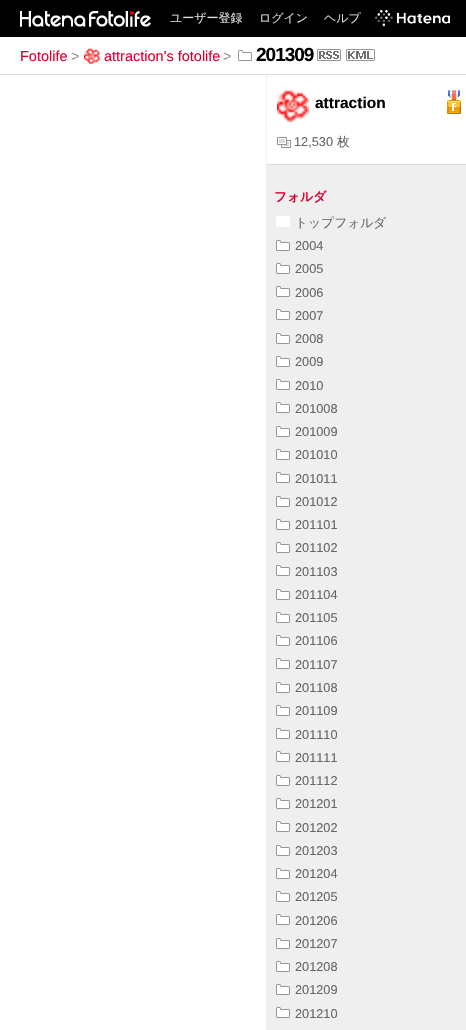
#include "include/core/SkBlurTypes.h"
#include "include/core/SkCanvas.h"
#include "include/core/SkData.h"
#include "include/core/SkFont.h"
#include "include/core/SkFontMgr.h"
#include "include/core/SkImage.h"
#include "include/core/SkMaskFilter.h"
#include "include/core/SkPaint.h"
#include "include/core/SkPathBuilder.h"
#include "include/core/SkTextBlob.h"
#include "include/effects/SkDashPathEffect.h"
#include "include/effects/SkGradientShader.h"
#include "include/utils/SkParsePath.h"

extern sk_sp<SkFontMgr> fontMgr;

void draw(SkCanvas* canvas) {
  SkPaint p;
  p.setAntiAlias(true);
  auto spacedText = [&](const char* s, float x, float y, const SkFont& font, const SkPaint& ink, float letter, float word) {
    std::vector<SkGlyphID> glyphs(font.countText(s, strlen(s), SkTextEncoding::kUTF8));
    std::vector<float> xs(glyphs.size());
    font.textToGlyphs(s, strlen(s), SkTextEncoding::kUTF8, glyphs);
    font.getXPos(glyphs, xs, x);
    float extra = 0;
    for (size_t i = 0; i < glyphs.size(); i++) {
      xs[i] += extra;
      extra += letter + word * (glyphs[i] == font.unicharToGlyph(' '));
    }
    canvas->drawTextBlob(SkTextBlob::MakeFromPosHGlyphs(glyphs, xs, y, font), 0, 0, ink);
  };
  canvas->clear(SK_ColorWHITE);
  p.setColor(SkColorSetRGB(239, 239, 239));
  canvas->drawRect(SkRect::MakeLTRB(266, 75, 466, 1030), p);
  p.setColor(SK_ColorBLACK);
  canvas->drawRect(SkRect::MakeLTRB(0, 0, 466, 37), p);
  canvas->drawImageRect(SkImages::DeferredFromEncodedData(SkData::MakeFromFileName("images/1.png")), SkRect::MakeLTRB(20, 11, 86, 27), SkSamplingOptions());
  canvas->drawImageRect(SkImages::DeferredFromEncodedData(SkData::MakeFromFileName("images/2.png")), SkRect::MakeLTRB(89, 11, 151, 27), SkSamplingOptions());
  canvas->drawImageRect(SkImages::DeferredFromEncodedData(SkData::MakeFromFileName("images/3.png")), SkRect::MakeLTRB(375, 10, 450, 26), SkSamplingOptions());
  p.setColor(SkColorSetRGB(222, 222, 222));
  canvas->drawRect(SkRect::MakeLTRB(0, 74, 466, 75), p);
  canvas->drawImageRect(SkImages::DeferredFromEncodedData(SkData::MakeFromFileName("images/4.png")), SkRect::MakeLTRB(84, 48, 100, 64), SkSamplingOptions());
  canvas->drawImageRect(SkImages::DeferredFromEncodedData(SkData::MakeFromFileName("images/5.png")), SkRect::MakeLTRB(238, 50, 252, 61), SkSamplingOptions());
  canvas->drawImageRect(SkImages::DeferredFromEncodedData(SkData::MakeFromFileName("images/6.png")), SkRect::MakeLTRB(317, 49, 341, 61), SkSamplingOptions());
  canvas->drawImageRect(SkImages::DeferredFromEncodedData(SkData::MakeFromFileName("images/7.png")), SkRect::MakeLTRB(346, 49, 375, 61), SkSamplingOptions());
  p.setColor(SK_ColorWHITE);
  canvas->drawRect(SkRect::MakeLTRB(267, 75, 466, 164), p);
  p.setColor(SkColorSetRGB(222, 222, 222));
  canvas->drawRect(SkRect::MakeLTRB(267, 164, 466, 165), p);
  canvas->drawImageRect(SkImages::DeferredFromEncodedData(SkData::MakeFromFileName("images/8.png")), SkRect::MakeLTRB(277, 90, 309, 122), SkSamplingOptions());
  canvas->drawImageRect(SkImages::DeferredFromEncodedData(SkData::MakeFromFileName("images/9.png")), SkRect::MakeLTRB(447, 90, 461, 114), SkSamplingOptions());
  canvas->drawImageRect(SkImages::DeferredFromEncodedData(SkData::MakeFromFileName("images/10.png")), SkRect::MakeLTRB(277, 137, 291, 148), SkSamplingOptions());
  p.setColor(SK_ColorWHITE);
  canvas->drawRect(SkRect::MakeLTRB(276, 216, 290, 227), p);
  canvas->drawImageRect(SkImages::DeferredFromEncodedData(SkData::MakeFromFileName("images/11.png")), SkRect::MakeLTRB(276, 240, 290, 251), SkSamplingOptions());
  canvas->drawImageRect(SkImages::DeferredFromEncodedData(SkData::MakeFromFileName("images/11.png")), SkRect::MakeLTRB(276, 263, 290, 274), SkSamplingOptions());
  canvas->drawImageRect(SkImages::DeferredFromEncodedData(SkData::MakeFromFileName("images/11.png")), SkRect::MakeLTRB(276, 286, 290, 297), SkSamplingOptions());
  canvas->drawImageRect(SkImages::DeferredFromEncodedData(SkData::MakeFromFileName("images/11.png")), SkRect::MakeLTRB(276, 309, 290, 320), SkSamplingOptions());
  canvas->drawImageRect(SkImages::DeferredFromEncodedData(SkData::MakeFromFileName("images/11.png")), SkRect::MakeLTRB(276, 333, 290, 344), SkSamplingOptions());
  canvas->drawImageRect(SkImages::DeferredFromEncodedData(SkData::MakeFromFileName("images/11.png")), SkRect::MakeLTRB(276, 356, 290, 367), SkSamplingOptions());
  canvas->drawImageRect(SkImages::DeferredFromEncodedData(SkData::MakeFromFileName("images/11.png")), SkRect::MakeLTRB(276, 379, 290, 390), SkSamplingOptions());
  canvas->drawImageRect(SkImages::DeferredFromEncodedData(SkData::MakeFromFileName("images/11.png")), SkRect::MakeLTRB(276, 402, 290, 413), SkSamplingOptions());
  canvas->drawImageRect(SkImages::DeferredFromEncodedData(SkData::MakeFromFileName("images/11.png")), SkRect::MakeLTRB(276, 426, 290, 437), SkSamplingOptions());
  canvas->drawImageRect(SkImages::DeferredFromEncodedData(SkData::MakeFromFileName("images/11.png")), SkRect::MakeLTRB(276, 449, 290, 460), SkSamplingOptions());
  canvas->drawImageRect(SkImages::DeferredFromEncodedData(SkData::MakeFromFileName("images/11.png")), SkRect::MakeLTRB(276, 472, 290, 483), SkSamplingOptions());
  canvas->drawImageRect(SkImages::DeferredFromEncodedData(SkData::MakeFromFileName("images/11.png")), SkRect::MakeLTRB(276, 496, 290, 507), SkSamplingOptions());
  canvas->drawImageRect(SkImages::DeferredFromEncodedData(SkData::MakeFromFileName("images/11.png")), SkRect::MakeLTRB(276, 519, 290, 530), SkSamplingOptions());
  canvas->drawImageRect(SkImages::DeferredFromEncodedData(SkData::MakeFromFileName("images/11.png")), SkRect::MakeLTRB(276, 542, 290, 553), SkSamplingOptions());
  canvas->drawImageRect(SkImages::DeferredFromEncodedData(SkData::MakeFromFileName("images/11.png")), SkRect::MakeLTRB(276, 565, 290, 576), SkSamplingOptions());
  canvas->drawImageRect(SkImages::DeferredFromEncodedData(SkData::MakeFromFileName("images/11.png")), SkRect::MakeLTRB(276, 589, 290, 600), SkSamplingOptions());
  canvas->drawImageRect(SkImages::DeferredFromEncodedData(SkData::MakeFromFileName("images/11.png")), SkRect::MakeLTRB(276, 612, 290, 623), SkSamplingOptions());
  canvas->drawImageRect(SkImages::DeferredFromEncodedData(SkData::MakeFromFileName("images/11.png")), SkRect::MakeLTRB(276, 635, 290, 646), SkSamplingOptions());
  canvas->drawImageRect(SkImages::DeferredFromEncodedData(SkData::MakeFromFileName("images/11.png")), SkRect::MakeLTRB(276, 658, 290, 669), SkSamplingOptions());
  canvas->drawImageRect(SkImages::DeferredFromEncodedData(SkData::MakeFromFileName("images/11.png")), SkRect::MakeLTRB(276, 682, 290, 693), SkSamplingOptions());
  canvas->drawImageRect(SkImages::DeferredFromEncodedData(SkData::MakeFromFileName("images/11.png")), SkRect::MakeLTRB(276, 705, 290, 716), SkSamplingOptions());
  canvas->drawImageRect(SkImages::DeferredFromEncodedData(SkData::MakeFromFileName("images/11.png")), SkRect::MakeLTRB(276, 728, 290, 739), SkSamplingOptions());
  canvas->drawImageRect(SkImages::DeferredFromEncodedData(SkData::MakeFromFileName("images/11.png")), SkRect::MakeLTRB(276, 751, 290, 762), SkSamplingOptions());
  canvas->drawImageRect(SkImages::DeferredFromEncodedData(SkData::MakeFromFileName("images/11.png")), SkRect::MakeLTRB(276, 775, 290, 786), SkSamplingOptions());
  canvas->drawImageRect(SkImages::DeferredFromEncodedData(SkData::MakeFromFileName("images/11.png")), SkRect::MakeLTRB(276, 798, 290, 809), SkSamplingOptions());
  canvas->drawImageRect(SkImages::DeferredFromEncodedData(SkData::MakeFromFileName("images/11.png")), SkRect::MakeLTRB(276, 821, 290, 832), SkSamplingOptions());
  canvas->drawImageRect(SkImages::DeferredFromEncodedData(SkData::MakeFromFileName("images/11.png")), SkRect::MakeLTRB(276, 845, 290, 856), SkSamplingOptions());
  canvas->drawImageRect(SkImages::DeferredFromEncodedData(SkData::MakeFromFileName("images/11.png")), SkRect::MakeLTRB(276, 868, 290, 879), SkSamplingOptions());
  canvas->drawImageRect(SkImages::DeferredFromEncodedData(SkData::MakeFromFileName("images/11.png")), SkRect::MakeLTRB(276, 891, 290, 902), SkSamplingOptions());
  canvas->drawImageRect(SkImages::DeferredFromEncodedData(SkData::MakeFromFileName("images/11.png")), SkRect::MakeLTRB(276, 914, 290, 925), SkSamplingOptions());
  canvas->drawImageRect(SkImages::DeferredFromEncodedData(SkData::MakeFromFileName("images/11.png")), SkRect::MakeLTRB(276, 938, 290, 949), SkSamplingOptions());
  canvas->drawImageRect(SkImages::DeferredFromEncodedData(SkData::MakeFromFileName("images/11.png")), SkRect::MakeLTRB(276, 961, 290, 972), SkSamplingOptions());
  canvas->drawImageRect(SkImages::DeferredFromEncodedData(SkData::MakeFromFileName("images/11.png")), SkRect::MakeLTRB(276, 984, 290, 995), SkSamplingOptions());
  canvas->drawImageRect(SkImages::DeferredFromEncodedData(SkData::MakeFromFileName("images/11.png")), SkRect::MakeLTRB(276, 1007, 290, 1018), SkSamplingOptions());
  SkFont font1(fontMgr->matchFamilyStyle("WenQuanYi Zen Hei", SkFontStyle(500, SkFontStyle::kNormal_Width, SkFontStyle::kUpright_Slant)), 12);
  font1.setSubpixel(true);
  p.setColor(SkColorSetRGB(221, 221, 221));
  canvas->drawString("ユーザー登録", 170, 22, font1, p);
  canvas->drawString("ログイン", 259, 22, font1, p);
  canvas->drawString("ヘルプ", 324, 22, font1, p);
  SkFont font2(fontMgr->matchFamilyStyle("Liberation Sans", SkFontStyle::Normal()), 14.5f);
  font2.setSubpixel(true);
  p.setColor(SkColorSetRGB(222, 0, 47));
  canvas->drawString("Fotolife", 20, 61, font2, p);
  p.setColor(SkColorSetRGB(153, 153, 153));
  canvas->drawString(">", 71, 61, font2, p);
  p.setColor(SkColorSetRGB(222, 0, 47));
  canvas->drawString("attraction's fotolife", 104, 61, font2, p);
  p.setColor(SkColorSetRGB(153, 153, 153));
  canvas->drawString(">", 223, 61, font2, p);
  SkFont font3(fontMgr->matchFamilyStyle("Liberation Sans", SkFontStyle::Bold()), 19);
  font3.setSubpixel(true);
  p.setColor(SK_ColorBLACK);
  spacedText("201309", 256, 61, font3, p, -1, 0);
  SkFont font4(fontMgr->matchFamilyStyle("Liberation Sans", SkFontStyle::Bold()), 15.5f);
  font4.setSubpixel(true);
  canvas->drawString("attraction", 315, 108, font4, p);
  SkFont font5(fontMgr->matchFamilyStyle("Liberation Sans", SkFontStyle::Normal()), 12.75f);
  font5.setSubpixel(true);
  p.setColor(SkColorSetRGB(102, 102, 102));
  canvas->drawString("12,530", 294, 146, font5, p);
  SkFont font6(fontMgr->matchFamilyStyle("WenQuanYi Zen Hei", SkFontStyle(500, SkFontStyle::kNormal_Width, SkFontStyle::kUpright_Slant)), 12.75f);
  font6.setSubpixel(true);
  canvas->drawString("枚", 337, 146, font6, p);
  SkFont font7(fontMgr->matchFamilyStyle("WenQuanYi Zen Hei", SkFontStyle::Bold()), 12.75f);
  font7.setSubpixel(true);
  p.setColor(SkColorSetRGB(222, 0, 47));
  canvas->drawString("フォルダ", 274, 201, font7, p);
  p.setColor(SkColorSetRGB(102, 102, 102));
  canvas->drawString("トップフォルダ", 295, 227, font6, p);
  canvas->drawString("2004", 295, 250, font5, p);
  canvas->drawString("2005", 295, 273, font5, p);
  canvas->drawString("2006", 295, 297, font5, p);
  canvas->drawString("2007", 295, 320, font5, p);
  canvas->drawString("2008", 295, 343, font5, p);
  canvas->drawString("2009", 295, 366, font5, p);
  canvas->drawString("2010", 295, 390, font5, p);
  canvas->drawString("201008", 295, 413, font5, p);
  canvas->drawString("201009", 295, 436, font5, p);
  canvas->drawString("201010", 295, 459, font5, p);
  canvas->drawString("201011", 295, 483, font5, p);
  canvas->drawString("201012", 295, 506, font5, p);
  canvas->drawString("201101", 295, 529, font5, p);
  canvas->drawString("201102", 295, 552, font5, p);
  canvas->drawString("201103", 295, 576, font5, p);
  canvas->drawString("201104", 295, 599, font5, p);
  canvas->drawString("201105", 295, 622, font5, p);
  canvas->drawString("201106", 295, 645, font5, p);
  canvas->drawString("201107", 295, 669, font5, p);
  canvas->drawString("201108", 295, 692, font5, p);
  canvas->drawString("201109", 295, 715, font5, p);
  canvas->drawString("201110", 295, 739, font5, p);
  canvas->drawString("201111", 295, 762, font5, p);
  canvas->drawString("201112", 295, 785, font5, p);
  canvas->drawString("201201", 295, 808, font5, p);
  canvas->drawString("201202", 295, 832, font5, p);
  canvas->drawString("201203", 295, 855, font5, p);
  canvas->drawString("201204", 295, 878, font5, p);
  canvas->drawString("201205", 295, 901, font5, p);
  canvas->drawString("201206", 295, 925, font5, p);
  canvas->drawString("201207", 295, 948, font5, p);
  canvas->drawString("201208", 295, 971, font5, p);
  canvas->drawString("201209", 295, 994, font5, p);
  canvas->drawString("201210", 295, 1018, font5, p);
}
